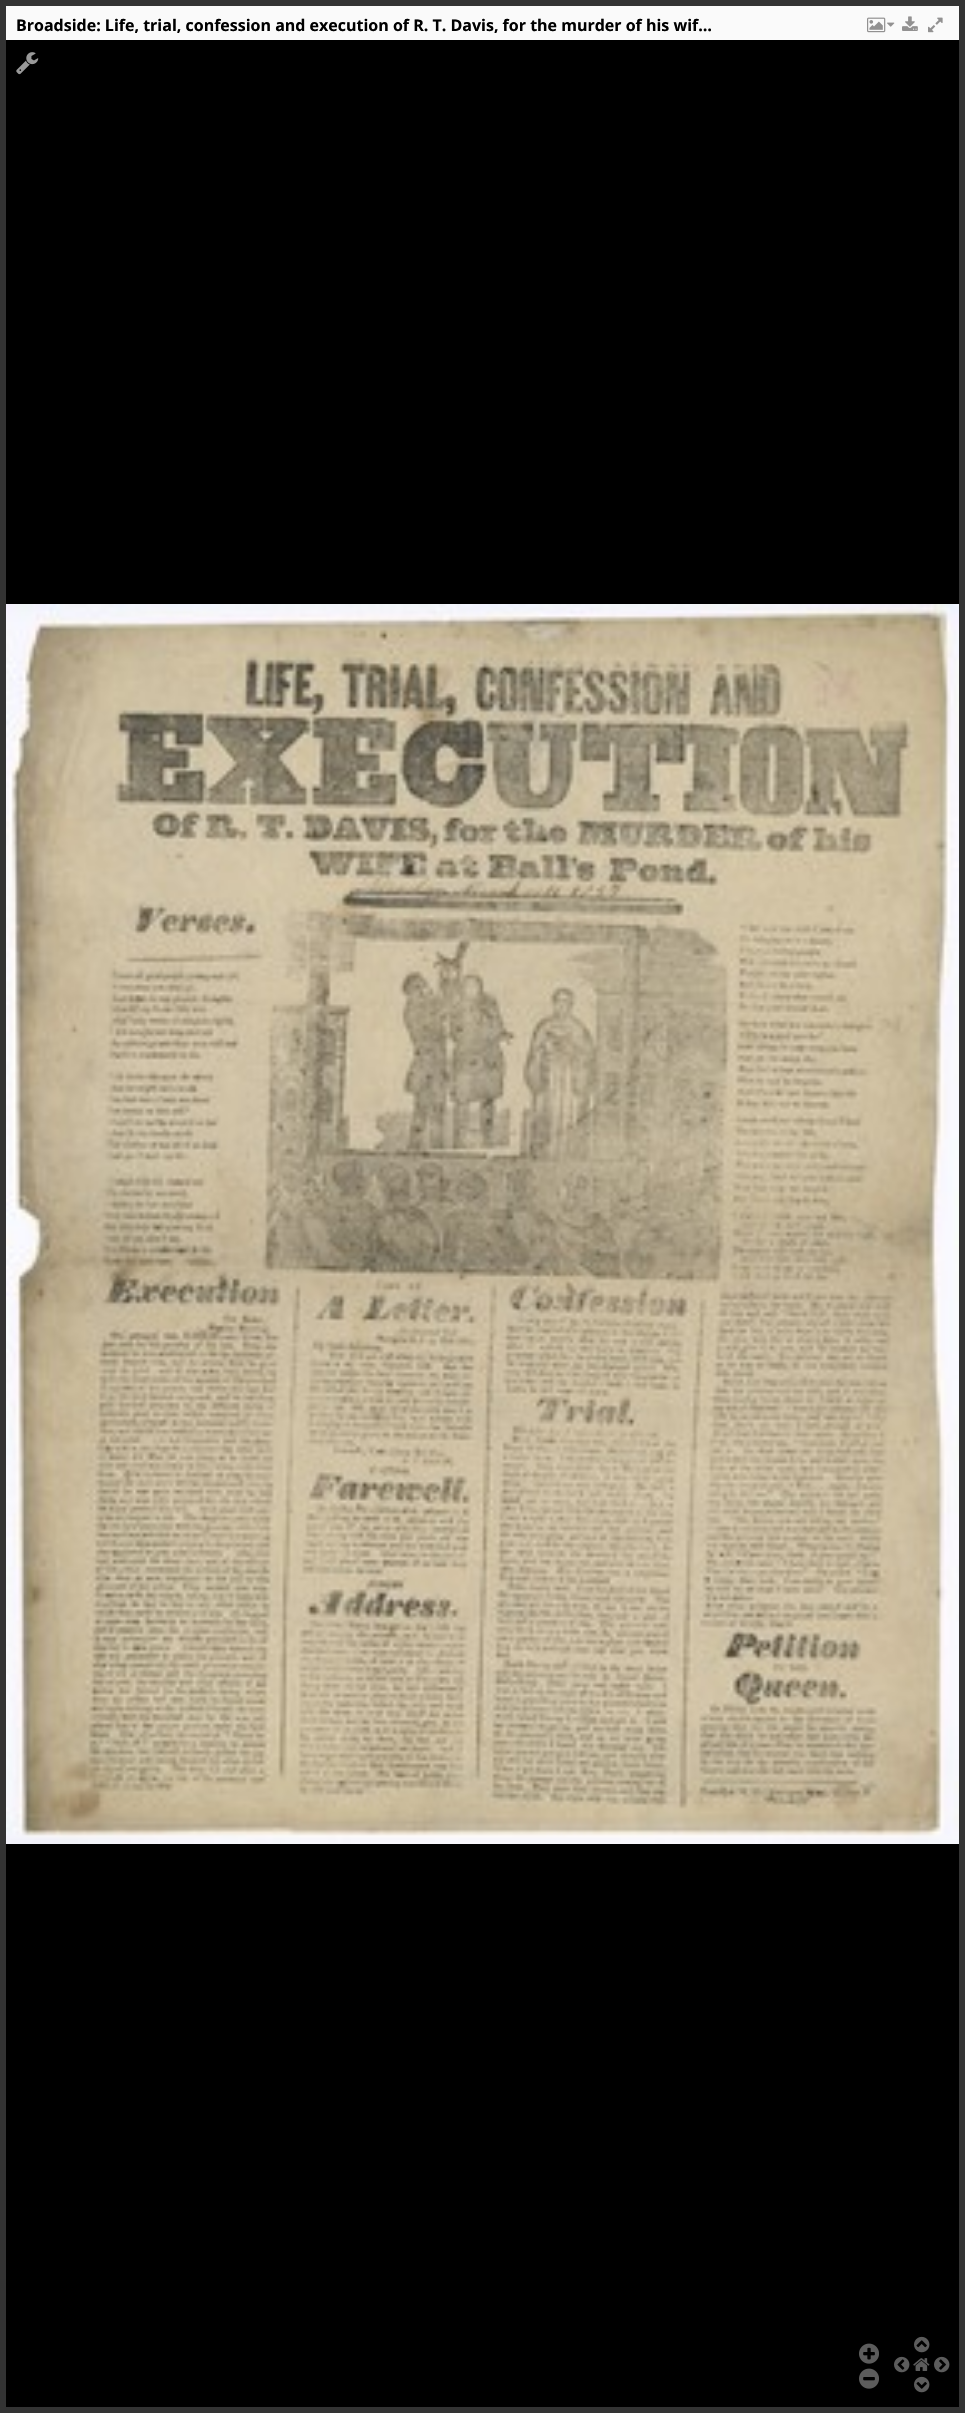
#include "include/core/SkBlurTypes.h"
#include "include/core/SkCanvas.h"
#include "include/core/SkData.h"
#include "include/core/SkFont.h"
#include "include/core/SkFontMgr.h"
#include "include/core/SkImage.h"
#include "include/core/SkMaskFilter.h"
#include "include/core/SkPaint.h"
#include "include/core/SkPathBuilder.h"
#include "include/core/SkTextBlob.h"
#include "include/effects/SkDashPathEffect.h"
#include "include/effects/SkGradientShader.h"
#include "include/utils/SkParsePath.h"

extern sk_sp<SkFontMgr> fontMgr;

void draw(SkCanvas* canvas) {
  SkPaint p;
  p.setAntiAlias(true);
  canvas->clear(SkColorSetRGB(51, 51, 51));
  p.setColor(SkColorSetRGB(250, 250, 250));
  canvas->drawRect(SkRect::MakeLTRB(6, 6, 959, 40), p);
  canvas->drawImageRect(SkImages::DeferredFromEncodedData(SkData::MakeFromFileName("images/1.png")), SkRect::MakeLTRB(867, 17, 886, 33), SkSamplingOptions());
  canvas->drawImageRect(SkImages::DeferredFromEncodedData(SkData::MakeFromFileName("images/2.png")), SkRect::MakeLTRB(887, 22, 895, 27), SkSamplingOptions());
  canvas->drawImageRect(SkImages::DeferredFromEncodedData(SkData::MakeFromFileName("images/3.png")), SkRect::MakeLTRB(902, 16, 918, 31), SkSamplingOptions());
  canvas->drawImageRect(SkImages::DeferredFromEncodedData(SkData::MakeFromFileName("images/4.png")), SkRect::MakeLTRB(928, 17, 943, 33), SkSamplingOptions());
  p.setColor(SK_ColorBLACK);
  canvas->drawRect(SkRect::MakeLTRB(6, 40, 959, 2407), p);
  canvas->drawImageRect(SkImages::DeferredFromEncodedData(SkData::MakeFromFileName("images/5.png")), SkRect::MakeLTRB(16, 52, 39, 75), SkSamplingOptions());
  canvas->drawImageRect(SkImages::DeferredFromEncodedData(SkData::MakeFromFileName("images/6.png")), SkRect::MakeLTRB(859, 2343, 879, 2364), SkSamplingOptions());
  canvas->drawImageRect(SkImages::DeferredFromEncodedData(SkData::MakeFromFileName("images/7.png")), SkRect::MakeLTRB(894, 2356, 910, 2373), SkSamplingOptions());
  canvas->drawImageRect(SkImages::DeferredFromEncodedData(SkData::MakeFromFileName("images/8.png")), SkRect::MakeLTRB(914, 2336, 930, 2353), SkSamplingOptions());
  canvas->drawImageRect(SkImages::DeferredFromEncodedData(SkData::MakeFromFileName("images/9.png")), SkRect::MakeLTRB(934, 2356, 950, 2373), SkSamplingOptions());
  canvas->drawImageRect(SkImages::DeferredFromEncodedData(SkData::MakeFromFileName("images/10.png")), SkRect::MakeLTRB(913, 2358, 930, 2371), SkSamplingOptions());
  canvas->drawImageRect(SkImages::DeferredFromEncodedData(SkData::MakeFromFileName("images/11.png")), SkRect::MakeLTRB(859, 2368, 879, 2389), SkSamplingOptions());
  canvas->drawImageRect(SkImages::DeferredFromEncodedData(SkData::MakeFromFileName("images/12.png")), SkRect::MakeLTRB(914, 2376, 930, 2393), SkSamplingOptions());
  canvas->drawImageRect(SkImages::DeferredFromEncodedData(SkData::MakeFromFileName("images/13.png")), SkRect::MakeLTRB(6, 604, 959, 1844), SkSamplingOptions());
  SkFont font1(fontMgr->matchFamilyStyle("Open Sans", SkFontStyle::Bold()), 16);
  font1.setSubpixel(true);
  canvas->drawString("Broadside: Life, trial, confession and execution of R. T. Davis, for the murder of his wif…", 16, 31, font1, p);
}
